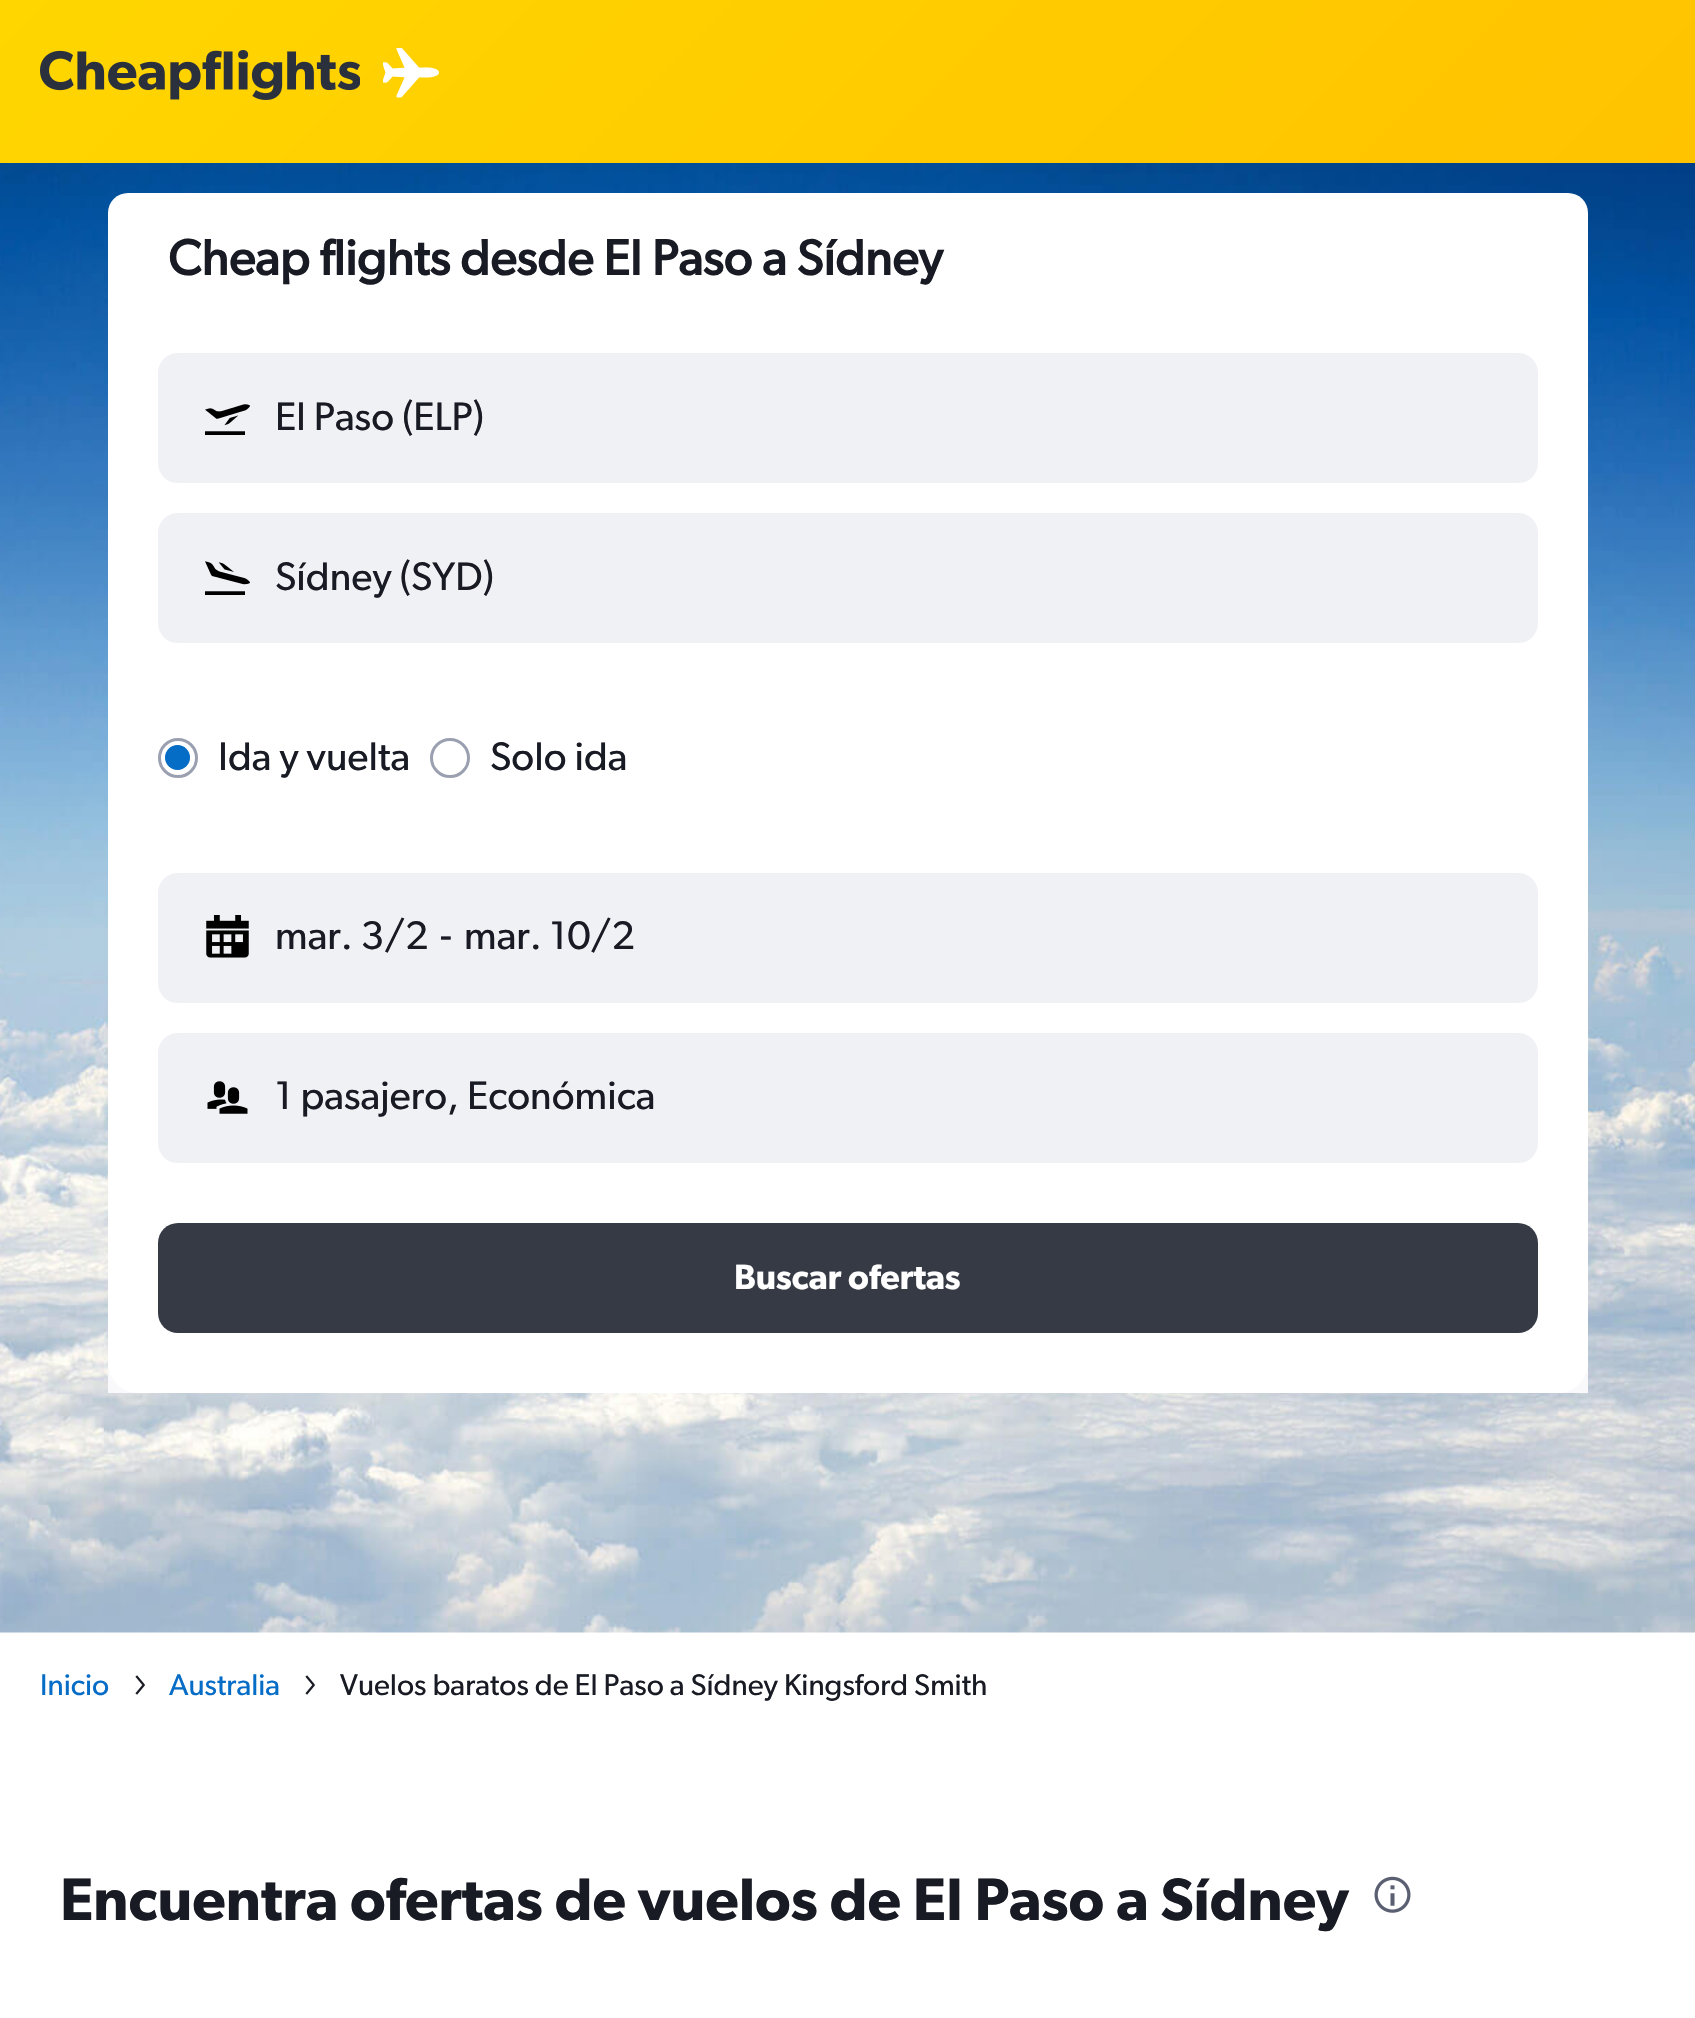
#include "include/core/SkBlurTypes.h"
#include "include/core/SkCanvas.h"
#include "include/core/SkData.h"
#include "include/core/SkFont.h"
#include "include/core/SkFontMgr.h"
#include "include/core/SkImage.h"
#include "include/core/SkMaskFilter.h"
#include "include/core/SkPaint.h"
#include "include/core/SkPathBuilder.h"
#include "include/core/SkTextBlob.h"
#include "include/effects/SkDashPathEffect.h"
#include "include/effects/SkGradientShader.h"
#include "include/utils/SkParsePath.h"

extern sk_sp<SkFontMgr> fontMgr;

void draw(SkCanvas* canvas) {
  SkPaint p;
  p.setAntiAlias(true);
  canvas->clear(SK_ColorWHITE);
  {
    const SkColor colors[] = {SkColorSetRGB(255, 214, 0), SkColorSetRGB(255, 195, 0)};
    const float stops[] = {0, 1};
    const SkPoint ends[] = {{383, -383}, {1312, 546}};
    p.setShader(SkGradientShader::MakeLinear(ends, colors, stops, 2, SkTileMode::kClamp));
    p.setAlpha(255);
  }
  canvas->drawRect(SkRect::MakeLTRB(0, 0, 1695, 163), p);
  canvas->drawImageRect(SkImages::DeferredFromEncodedData(SkData::MakeFromFileName("images/1.png")), SkRect::MakeLTRB(40, 50, 360, 100), SkSamplingOptions());
  canvas->drawImageRect(SkImages::DeferredFromEncodedData(SkData::MakeFromFileName("images/2.png")), SkRect::MakeLTRB(383, 48, 439, 98), SkSamplingOptions());
  canvas->drawImageRect(SkImages::DeferredFromEncodedData(SkData::MakeFromFileName("images/3.png")), SkRect::MakeLTRB(0, 163, 1695, 1633), SkSamplingOptions());
  p.setShader(nullptr);
  p.setColor(SK_ColorWHITE);
  canvas->drawRoundRect(SkRect::MakeLTRB(108, 193, 1588, 1393), 20, 20, p);
  p.setColor(SkColorSetRGB(249, 249, 251));
  canvas->drawRect(SkRect::MakeLTRB(108, 1363, 1588, 1393), p);
  p.setColor(SK_ColorWHITE);
  canvas->drawPath(SkPathBuilder().moveTo(108, 293).lineTo(1588, 293).lineTo(1588, 1363).cubicTo(1588, 1379.5f, 1574.5f, 1393, 1558, 1393).lineTo(138, 1393).cubicTo(121.5f, 1393, 108, 1379.5f, 108, 1363).close().detach(), p);
  p.setColor(SkColorSetRGB(240, 241, 245));
  canvas->drawRoundRect(SkRect::MakeLTRB(159.5f, 354.5f, 1536.5f, 481.5f), 18.5f, 18.5f, p);
  p.setStyle(SkPaint::kStroke_Style);
  p.setStrokeWidth(3);
  canvas->drawRoundRect(SkRect::MakeLTRB(159.5f, 354.5f, 1536.5f, 481.5f), 18.5f, 18.5f, p);
  canvas->drawImageRect(SkImages::DeferredFromEncodedData(SkData::MakeFromFileName("images/4.png")), SkRect::MakeLTRB(205, 404, 250, 435), SkSamplingOptions());
  p.setStyle(SkPaint::kFill_Style);
  canvas->drawRoundRect(SkRect::MakeLTRB(159.5f, 514.5f, 1536.5f, 641.5f), 18.5f, 18.5f, p);
  p.setStyle(SkPaint::kStroke_Style);
  canvas->drawRoundRect(SkRect::MakeLTRB(159.5f, 514.5f, 1536.5f, 641.5f), 18.5f, 18.5f, p);
  canvas->drawImageRect(SkImages::DeferredFromEncodedData(SkData::MakeFromFileName("images/5.png")), SkRect::MakeLTRB(205, 561, 250, 595), SkSamplingOptions());
  p.setStyle(SkPaint::kFill_Style);
  p.setColor(SkColorSetRGB(6, 109, 199));
  canvas->drawCircle(177.5f, 757.5f, 12.5f, p);
  p.setStyle(SkPaint::kStroke_Style);
  p.setColor(SkColorSetRGB(155, 160, 176));
  canvas->drawCircle(178, 758, 18.5f, p);
  p.setStyle(SkPaint::kFill_Style);
  p.setColor(SkColorSetRGB(6, 109, 199));
  canvas->drawCircle(177.5f, 757.5f, 12, p);
  p.setStyle(SkPaint::kStroke_Style);
  p.setColor(SkColorSetRGB(155, 160, 176));
  canvas->drawCircle(450, 758, 18.5f, p);
  p.setStyle(SkPaint::kFill_Style);
  p.setColor(SkColorSetRGB(240, 241, 245));
  canvas->drawRoundRect(SkRect::MakeLTRB(159.5f, 874.5f, 1536.5f, 1001.5f), 18.5f, 18.5f, p);
  p.setStyle(SkPaint::kStroke_Style);
  canvas->drawRoundRect(SkRect::MakeLTRB(159.5f, 874.5f, 1536.5f, 1001.5f), 18.5f, 18.5f, p);
  canvas->drawImageRect(SkImages::DeferredFromEncodedData(SkData::MakeFromFileName("images/6.png")), SkRect::MakeLTRB(206, 915, 249, 958), SkSamplingOptions());
  p.setStyle(SkPaint::kFill_Style);
  canvas->drawRoundRect(SkRect::MakeLTRB(159.5f, 1034.5f, 1536.5f, 1161.5f), 18.5f, 18.5f, p);
  p.setStyle(SkPaint::kStroke_Style);
  canvas->drawRoundRect(SkRect::MakeLTRB(159.5f, 1034.5f, 1536.5f, 1161.5f), 18.5f, 18.5f, p);
  canvas->drawImageRect(SkImages::DeferredFromEncodedData(SkData::MakeFromFileName("images/7.png")), SkRect::MakeLTRB(207, 1081, 248, 1114), SkSamplingOptions());
  p.setStyle(SkPaint::kFill_Style);
  p.setColor(SkColorSetRGB(54, 58, 69));
  canvas->drawRoundRect(SkRect::MakeLTRB(158, 1223, 1538, 1333), 20, 20, p);
  canvas->drawImageRect(SkImages::DeferredFromEncodedData(SkData::MakeFromFileName("images/8.png")), SkRect::MakeLTRB(135, 1675, 145, 1695), SkSamplingOptions());
  canvas->drawImageRect(SkImages::DeferredFromEncodedData(SkData::MakeFromFileName("images/8.png")), SkRect::MakeLTRB(305, 1675, 315, 1695), SkSamplingOptions());
  canvas->drawImageRect(SkImages::DeferredFromEncodedData(SkData::MakeFromFileName("images/9.png")), SkRect::MakeLTRB(1374, 1876, 1411, 1913), SkSamplingOptions());
  SkFont font1(fontMgr->matchFamilyStyle("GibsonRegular", SkFontStyle::Bold()), 50);
  font1.setSubpixel(true);
  p.setColor(SkColorSetRGB(25, 27, 36));
  canvas->drawString("Cheap flights desde El Paso a Sídney", 168, 275, font1, p);
  SkFont font2(fontMgr->matchFamilyStyle("GibsonRegular", SkFontStyle::Normal()), 40);
  font2.setSubpixel(true);
  canvas->drawString("El Paso (ELP)", 275, 430, font2, p);
  canvas->drawString("Sídney (SYD)", 275, 590, font2, p);
  canvas->drawString("Ida y vuelta", 218, 770, font2, p);
  canvas->drawString("Solo ida", 490, 770, font2, p);
  canvas->drawString("mar. 3/2", 275, 949, font2, p);
  canvas->drawString("-", 440, 949, font2, p);
  canvas->drawString("mar. 10/2", 464, 949, font2, p);
  canvas->drawString("1 pasajero, Económica", 275, 1109, font2, p);
  SkFont font3(fontMgr->matchFamilyStyle("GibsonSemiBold", SkFontStyle(600, SkFontStyle::kNormal_Width, SkFontStyle::kUpright_Slant)), 35);
  font3.setSubpixel(true);
  p.setColor(SK_ColorWHITE);
  canvas->drawString("Buscar ofertas", 734, 1289, font3, p);
  SkFont font4(fontMgr->matchFamilyStyle("GibsonRegular", SkFontStyle::Normal()), 30);
  font4.setSubpixel(true);
  p.setColor(SkColorSetRGB(6, 109, 199));
  canvas->drawString("Inicio", 40, 1695, font4, p);
  canvas->drawString("Australia", 169, 1695, font4, p);
  p.setColor(SkColorSetRGB(25, 27, 36));
  canvas->drawString("Vuelos baratos de El Paso a Sídney Kingsford Smith", 340, 1695, font4, p);
  SkFont font5(fontMgr->matchFamilyStyle("GibsonSemiBold", SkFontStyle(600, SkFontStyle::kNormal_Width, SkFontStyle::kUpright_Slant)), 60);
  font5.setSubpixel(true);
  canvas->drawString("Encuentra ofertas de vuelos de El Paso a Sídney", 60, 1920, font5, p);
}
